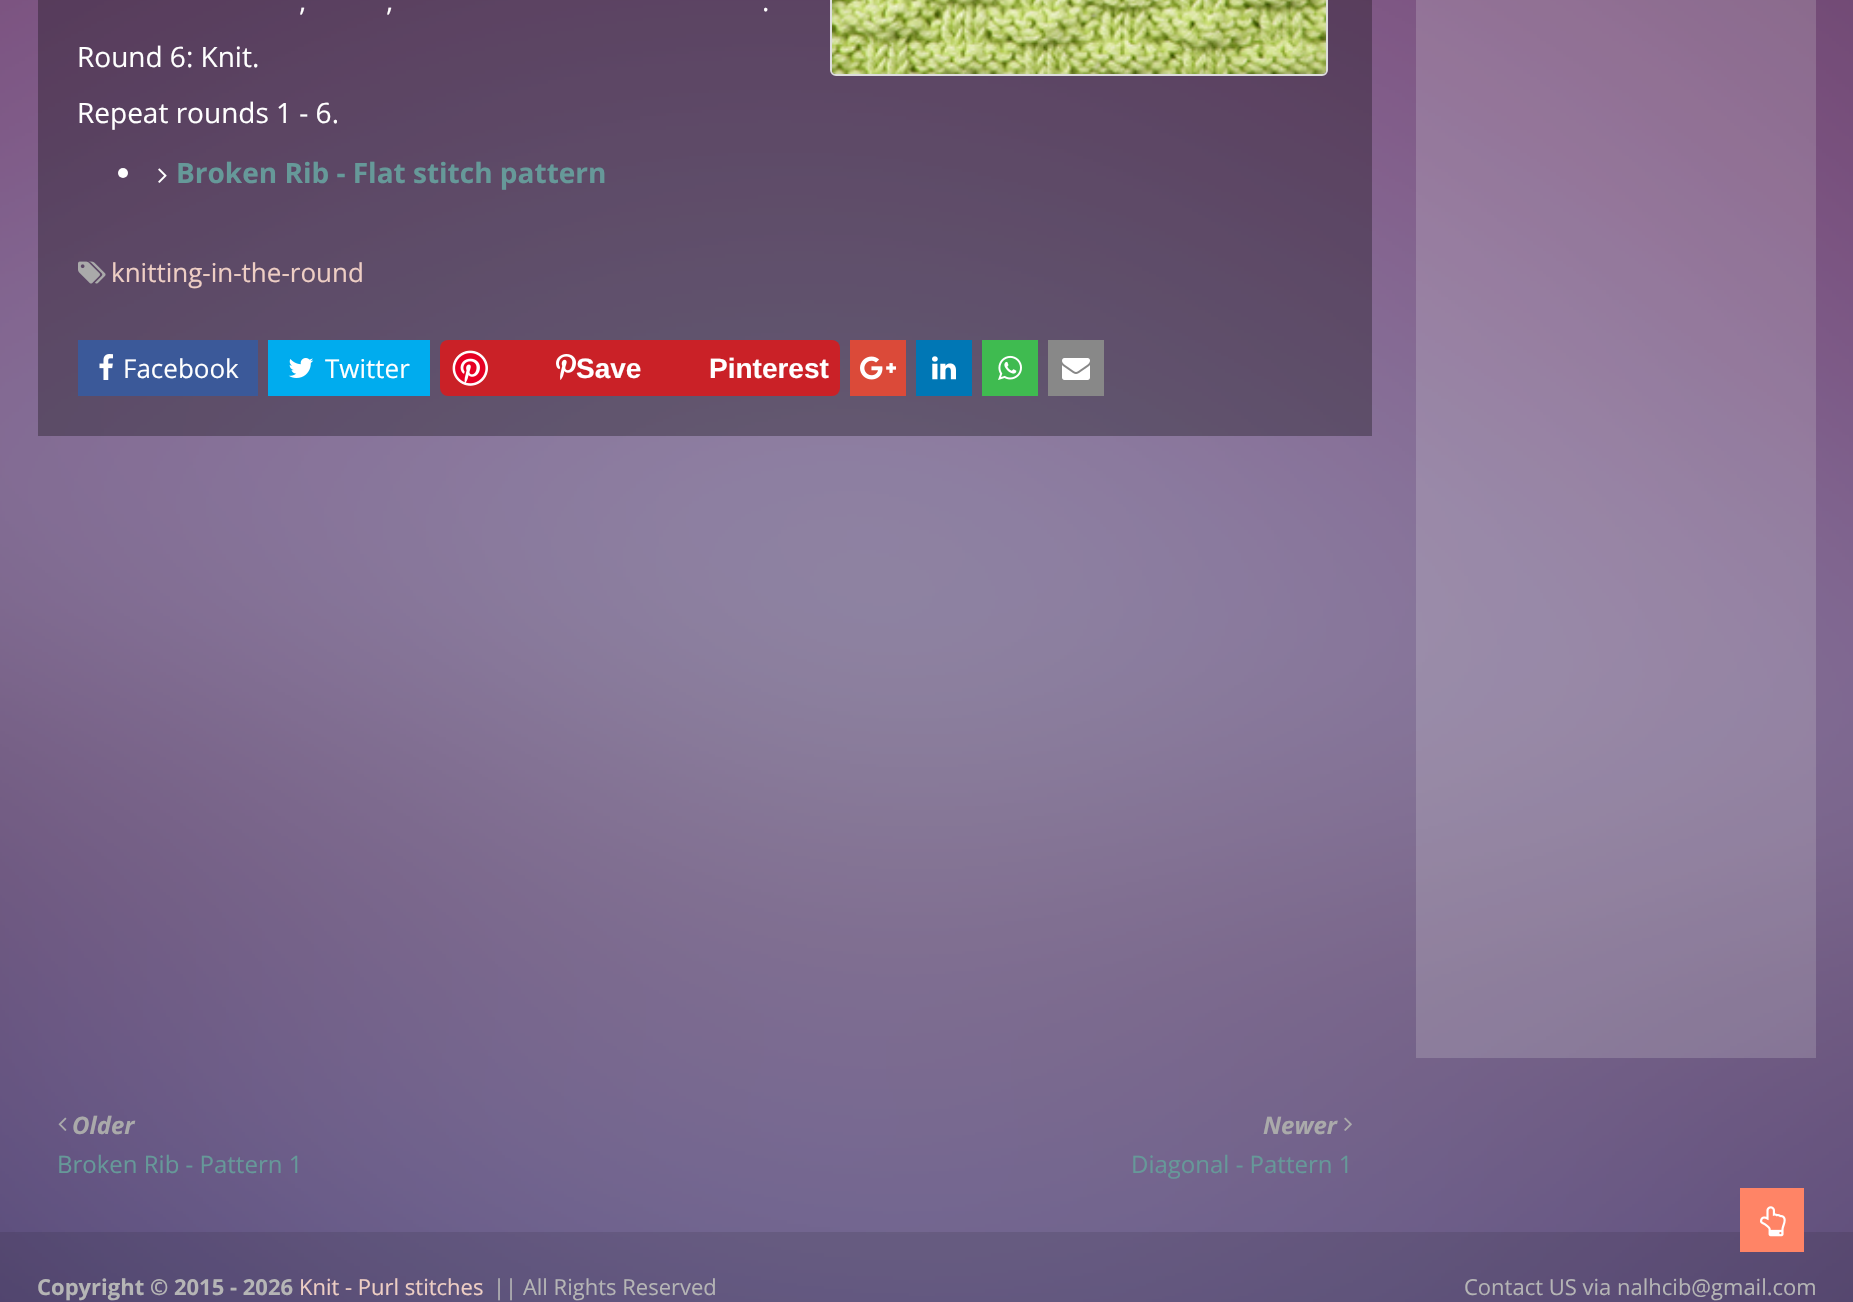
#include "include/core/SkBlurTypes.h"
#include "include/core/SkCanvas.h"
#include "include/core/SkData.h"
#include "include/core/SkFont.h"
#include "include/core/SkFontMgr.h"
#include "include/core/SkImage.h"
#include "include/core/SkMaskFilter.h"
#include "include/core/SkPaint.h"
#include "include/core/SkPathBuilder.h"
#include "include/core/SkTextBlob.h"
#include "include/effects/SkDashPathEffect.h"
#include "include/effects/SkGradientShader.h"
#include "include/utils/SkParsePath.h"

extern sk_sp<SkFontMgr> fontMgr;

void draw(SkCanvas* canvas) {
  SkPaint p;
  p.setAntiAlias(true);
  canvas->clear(SkColorSetRGB(80, 79, 110));
  canvas->drawImageRect(SkImages::DeferredFromEncodedData(SkData::MakeFromFileName("images/1.png")), SkRect::MakeLTRB(0, 0, 1853, 1302), SkSamplingOptions());
  p.setColor(SkColorSetARGB(77, 0, 0, 0));
  canvas->drawRect(SkRect::MakeLTRB(38, 0, 1372, 436), p);
  p.setStyle(SkPaint::kStroke_Style);
  p.setStrokeWidth(2);
  p.setColor(SkColorSetRGB(221, 221, 221));
  canvas->drawRoundRect(SkRect::MakeLTRB(831, -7, 1327, 75), 5, 5, p);
  canvas->drawImageRect(SkImages::DeferredFromEncodedData(SkData::MakeFromFileName("images/2.png")), SkRect::MakeLTRB(832, 0, 1326, 74), SkSamplingOptions());
  p.setStyle(SkPaint::kFill_Style);
  p.setColor(SK_ColorWHITE);
  canvas->drawCircle(123, 173, 5, p);
  canvas->drawImageRect(SkImages::DeferredFromEncodedData(SkData::MakeFromFileName("images/3.png")), SkRect::MakeLTRB(158, 168, 167, 183), SkSamplingOptions());
  canvas->drawImageRect(SkImages::DeferredFromEncodedData(SkData::MakeFromFileName("images/4.png")), SkRect::MakeLTRB(78, 261, 106, 284), SkSamplingOptions());
  p.setColor(SkColorSetRGB(59, 89, 153));
  canvas->drawRect(SkRect::MakeLTRB(78, 340, 258, 396), p);
  canvas->drawImageRect(SkImages::DeferredFromEncodedData(SkData::MakeFromFileName("images/5.png")), SkRect::MakeLTRB(99, 354, 113, 380), SkSamplingOptions());
  p.setColor(SkColorSetRGB(0, 172, 238));
  canvas->drawRect(SkRect::MakeLTRB(268, 340, 430, 396), p);
  canvas->drawImageRect(SkImages::DeferredFromEncodedData(SkData::MakeFromFileName("images/6.png")), SkRect::MakeLTRB(288, 358, 314, 378), SkSamplingOptions());
  p.setColor(SkColorSetRGB(202, 33, 39));
  canvas->drawRoundRect(SkRect::MakeLTRB(440, 340, 840, 396), 8, 8, p);
  canvas->drawImageRect(SkImages::DeferredFromEncodedData(SkData::MakeFromFileName("images/7.png")), SkRect::MakeLTRB(452, 350, 488, 386), SkSamplingOptions());
  canvas->drawImageRect(SkImages::DeferredFromEncodedData(SkData::MakeFromFileName("images/8.png")), SkRect::MakeLTRB(556, 354, 576, 380), SkSamplingOptions());
  p.setColor(SkColorSetRGB(219, 74, 57));
  canvas->drawRect(SkRect::MakeLTRB(850, 340, 906, 396), p);
  canvas->drawImageRect(SkImages::DeferredFromEncodedData(SkData::MakeFromFileName("images/9.png")), SkRect::MakeLTRB(860, 356, 896, 380), SkSamplingOptions());
  p.setColor(SkColorSetRGB(0, 119, 181));
  canvas->drawRect(SkRect::MakeLTRB(916, 340, 972, 396), p);
  canvas->drawImageRect(SkImages::DeferredFromEncodedData(SkData::MakeFromFileName("images/10.png")), SkRect::MakeLTRB(932, 356, 956, 380), SkSamplingOptions());
  p.setColor(SkColorSetRGB(63, 187, 80));
  canvas->drawRect(SkRect::MakeLTRB(982, 340, 1038, 396), p);
  canvas->drawImageRect(SkImages::DeferredFromEncodedData(SkData::MakeFromFileName("images/11.png")), SkRect::MakeLTRB(998, 355, 1022, 380), SkSamplingOptions());
  p.setColor(SkColorSetRGB(136, 136, 136));
  canvas->drawRect(SkRect::MakeLTRB(1048, 340, 1104, 396), p);
  canvas->drawImageRect(SkImages::DeferredFromEncodedData(SkData::MakeFromFileName("images/12.png")), SkRect::MakeLTRB(1062, 358, 1090, 380), SkSamplingOptions());
  canvas->drawImageRect(SkImages::DeferredFromEncodedData(SkData::MakeFromFileName("images/13.png")), SkRect::MakeLTRB(58, 1117, 67, 1131), SkSamplingOptions());
  canvas->drawImageRect(SkImages::DeferredFromEncodedData(SkData::MakeFromFileName("images/14.png")), SkRect::MakeLTRB(1344, 1117, 1352, 1131), SkSamplingOptions());
  p.setColor(SkColorSetARGB(51, 232, 232, 232));
  canvas->drawRect(SkRect::MakeLTRB(1416, 0, 1816, 1058), p);
  p.setColor(SkColorSetARGB(26, 0, 0, 0));
  canvas->drawRect(SkRect::MakeLTRB(0, 1232, 1853, 1302), p);
  p.setColor(SkColorSetRGB(255, 132, 102));
  canvas->drawRect(SkRect::MakeLTRB(1740, 1188, 1804, 1252), p);
  canvas->drawImageRect(SkImages::DeferredFromEncodedData(SkData::MakeFromFileName("images/15.png")), SkRect::MakeLTRB(1760, 1206, 1786, 1237), SkSamplingOptions());
  SkFont font1(fontMgr->matchFamilyStyle("Open Sans", SkFontStyle::Normal()), 28);
  font1.setSubpixel(true);
  p.setColor(SK_ColorWHITE);
  canvas->drawString(",", 299, 11, font1, p);
  canvas->drawString(",", 386, 11, font1, p);
  canvas->drawString(".", 762, 11, font1, p);
  canvas->drawString("Round 6: Knit.", 77, 67, font1, p);
  canvas->drawString("Repeat rounds 1 - 6.", 77, 123, font1, p);
  SkFont font2(fontMgr->matchFamilyStyle("Open Sans", SkFontStyle::Bold()), 28);
  font2.setSubpixel(true);
  p.setColor(SkColorSetRGB(102, 153, 153));
  canvas->drawString("Broken Rib - Flat stitch pattern", 176, 183, font2, p);
  SkFont font3(fontMgr->matchFamilyStyle("Open Sans", SkFontStyle::Normal()), 26);
  font3.setSubpixel(true);
  p.setColor(SkColorSetRGB(238, 206, 196));
  canvas->drawString("knitting-in-the-round", 111, 282, font3, p);
  p.setColor(SK_ColorWHITE);
  canvas->drawString("Facebook", 123, 378, font3, p);
  canvas->drawString("Twitter", 325, 378, font3, p);
  SkFont font4(fontMgr->matchFamilyStyle("Liberation Sans", SkFontStyle::Bold()), 28);
  font4.setSubpixel(true);
  canvas->drawString("Save", 576, 378, font4, p);
  canvas->drawString("Pinterest", 709, 378, font4, p);
  SkFont font5(fontMgr->matchFamilyStyle("Open Sans", SkFontStyle::BoldItalic()), 24);
  font5.setSubpixel(true);
  p.setColor(SkColorSetRGB(170, 170, 170));
  canvas->drawString("Older", 72, 1134, font5, p);
  SkFont font6(fontMgr->matchFamilyStyle("Open Sans", SkFontStyle::Normal()), 24);
  font6.setSubpixel(true);
  p.setColor(SkColorSetRGB(102, 153, 153));
  canvas->drawString("Broken Rib - Pattern 1", 57, 1173, font6, p);
  p.setColor(SkColorSetRGB(170, 170, 170));
  canvas->drawString("Newer", 1263, 1134, font5, p);
  p.setColor(SkColorSetRGB(102, 153, 153));
  canvas->drawString("Diagonal - Pattern 1", 1131, 1173, font6, p);
  SkFont font7(fontMgr->matchFamilyStyle("Open Sans", SkFontStyle::Bold()), 22);
  font7.setSubpixel(true);
  p.setColor(SkColorSetRGB(181, 181, 181));
  canvas->drawString("Copyright © 2015 - 2026", 37, 1295, font7, p);
  SkFont font8(fontMgr->matchFamilyStyle("Open Sans", SkFontStyle::Normal()), 22);
  font8.setSubpixel(true);
  p.setColor(SkColorSetRGB(238, 206, 196));
  canvas->drawString("Knit - Purl stitches", 299, 1295, font8, p);
  p.setColor(SkColorSetRGB(181, 181, 181));
  canvas->drawString("|| All Rights Reserved", 493, 1295, font8, p);
  canvas->drawString("Contact US via nalhcib@gmail.com", 1464, 1295, font8, p);
}
